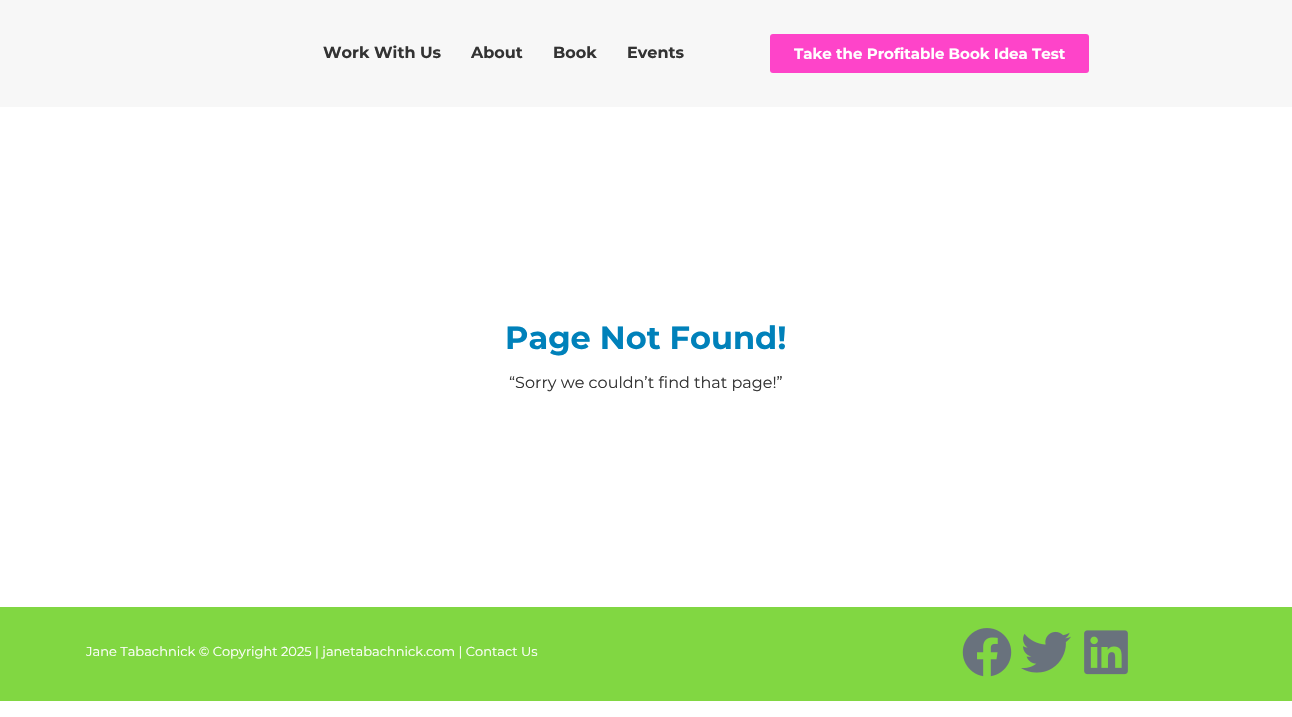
#include "include/core/SkBlurTypes.h"
#include "include/core/SkCanvas.h"
#include "include/core/SkData.h"
#include "include/core/SkFont.h"
#include "include/core/SkFontMgr.h"
#include "include/core/SkImage.h"
#include "include/core/SkMaskFilter.h"
#include "include/core/SkPaint.h"
#include "include/core/SkPathBuilder.h"
#include "include/core/SkTextBlob.h"
#include "include/effects/SkDashPathEffect.h"
#include "include/effects/SkGradientShader.h"
#include "include/utils/SkParsePath.h"

extern sk_sp<SkFontMgr> fontMgr;

void draw(SkCanvas* canvas) {
  SkPaint p;
  p.setAntiAlias(true);
  canvas->clear(SK_ColorWHITE);
  p.setColor(SkColorSetRGB(247, 247, 247));
  canvas->drawRect(SkRect::MakeLTRB(0, 0, 1292, 107), p);
  p.setColor(SkColorSetRGB(254, 68, 201));
  canvas->drawRoundRect(SkRect::MakeLTRB(770, 34, 1089, 73), 3, 3, p);
  p.setColor(SkColorSetRGB(129, 215, 66));
  canvas->drawRect(SkRect::MakeLTRB(0, 607, 1292, 701), p);
  canvas->drawImageRect(SkImages::DeferredFromEncodedData(SkData::MakeFromFileName("images/1.png")), SkRect::MakeLTRB(962, 628, 1012, 677), SkSamplingOptions());
  canvas->drawImageRect(SkImages::DeferredFromEncodedData(SkData::MakeFromFileName("images/2.png")), SkRect::MakeLTRB(1021, 631, 1071, 673), SkSamplingOptions());
  canvas->drawImageRect(SkImages::DeferredFromEncodedData(SkData::MakeFromFileName("images/3.png")), SkRect::MakeLTRB(1084, 630, 1128, 675), SkSamplingOptions());
  SkFont font1(fontMgr->matchFamilyStyle("Montserrat", SkFontStyle::Bold()), 16);
  font1.setSubpixel(true);
  p.setColor(SkColorSetRGB(51, 51, 51));
  canvas->drawString("Work With Us", 323, 58, font1, p);
  canvas->drawString("About", 471, 58, font1, p);
  canvas->drawString("Book", 553, 58, font1, p);
  canvas->drawString("Events", 627, 58, font1, p);
  SkFont font2(fontMgr->matchFamilyStyle("Montserrat", SkFontStyle::Bold()), 15);
  font2.setSubpixel(true);
  p.setColor(SK_ColorWHITE);
  canvas->drawString("Take the Profitable Book Idea Test", 794, 59, font2, p);
  SkFont font3(fontMgr->matchFamilyStyle("Montserrat", SkFontStyle::Bold()), 32);
  font3.setSubpixel(true);
  p.setColor(SkColorSetRGB(0, 129, 186));
  canvas->drawString("Page Not Found!", 505, 349, font3, p);
  SkFont font4(fontMgr->matchFamilyStyle("Montserrat", SkFontStyle::Normal()), 16);
  font4.setSubpixel(true);
  p.setColor(SkColorSetRGB(51, 51, 51));
  canvas->drawString("“Sorry we couldn’t find that page!”", 509, 388, font4, p);
  SkFont font5(fontMgr->matchFamilyStyle("Montserrat", SkFontStyle::Normal()), 13);
  font5.setSubpixel(true);
  p.setColor(SK_ColorWHITE);
  canvas->drawString("Jane Tabachnick © Copyright 2025 | janetabachnick.com | Contact Us", 86, 656, font5, p);
}
